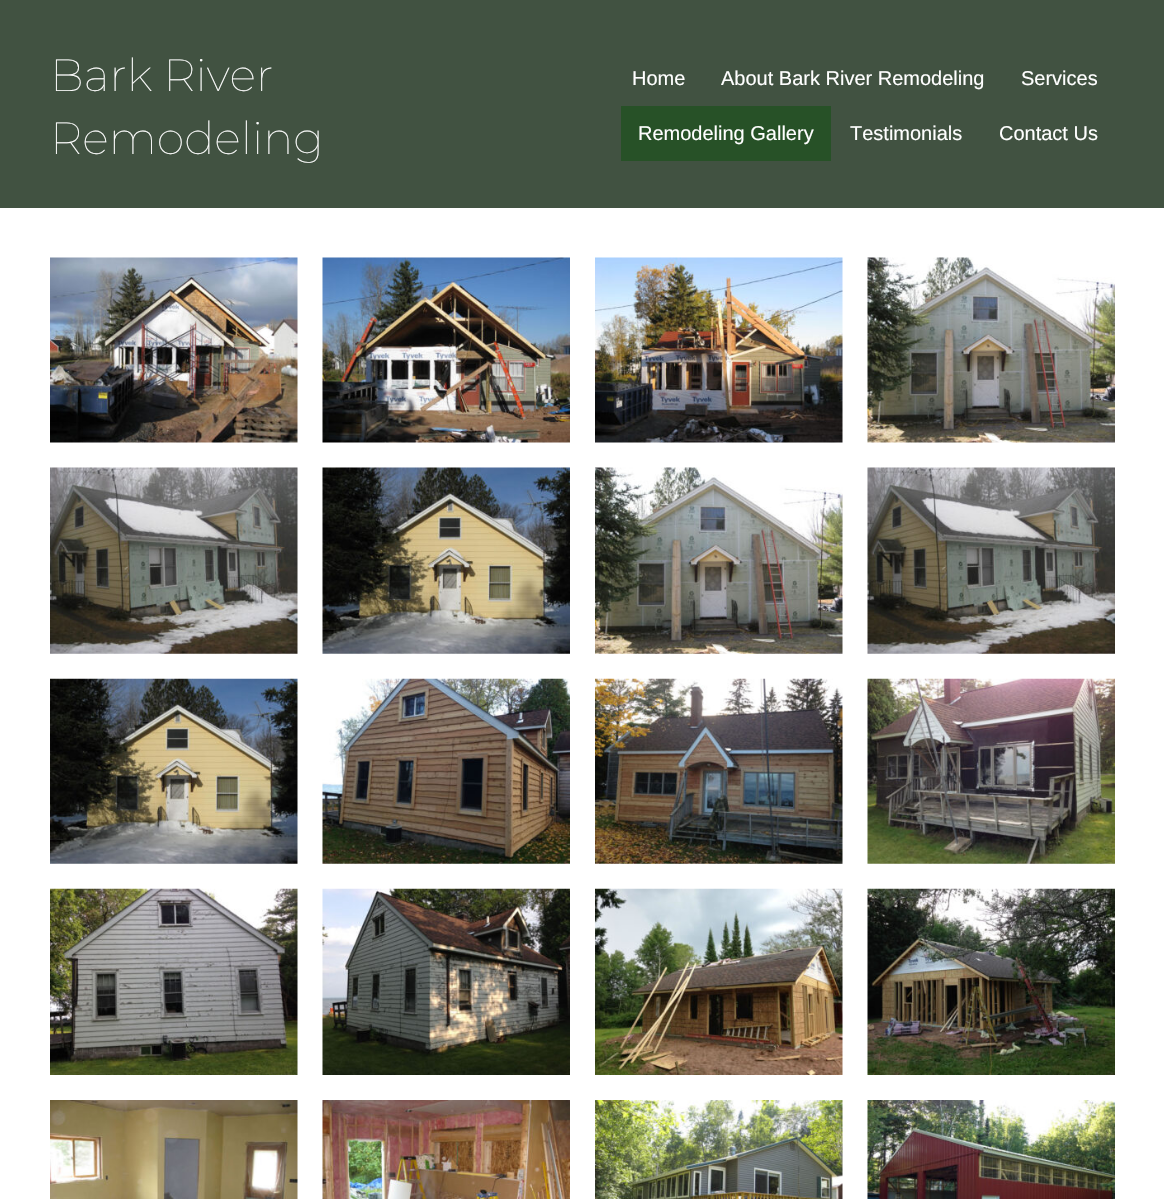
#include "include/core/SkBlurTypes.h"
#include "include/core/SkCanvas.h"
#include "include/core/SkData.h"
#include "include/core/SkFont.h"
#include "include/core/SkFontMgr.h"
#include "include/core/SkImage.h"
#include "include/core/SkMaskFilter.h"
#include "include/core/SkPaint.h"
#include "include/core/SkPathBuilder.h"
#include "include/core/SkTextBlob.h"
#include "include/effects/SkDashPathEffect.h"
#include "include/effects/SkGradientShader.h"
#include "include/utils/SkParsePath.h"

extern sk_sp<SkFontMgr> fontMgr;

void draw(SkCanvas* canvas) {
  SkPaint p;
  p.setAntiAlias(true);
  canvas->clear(SK_ColorWHITE);
  p.setColor(SkColorSetRGB(65, 82, 65));
  canvas->drawRect(SkRect::MakeLTRB(0, 0, 1164, 208), p);
  p.setColor(SkColorSetRGB(39, 81, 39));
  canvas->drawRect(SkRect::MakeLTRB(621, 106, 831, 161), p);
  canvas->drawImageRect(SkImages::DeferredFromEncodedData(SkData::MakeFromFileName("images/1.png")), SkRect::MakeLTRB(50, 257, 298, 443), SkSamplingOptions());
  canvas->drawImageRect(SkImages::DeferredFromEncodedData(SkData::MakeFromFileName("images/2.png")), SkRect::MakeLTRB(50, 467, 298, 654), SkSamplingOptions());
  canvas->drawImageRect(SkImages::DeferredFromEncodedData(SkData::MakeFromFileName("images/3.png")), SkRect::MakeLTRB(50, 678, 298, 864), SkSamplingOptions());
  canvas->drawImageRect(SkImages::DeferredFromEncodedData(SkData::MakeFromFileName("images/4.png")), SkRect::MakeLTRB(50, 888, 298, 1075), SkSamplingOptions());
  canvas->drawImageRect(SkImages::DeferredFromEncodedData(SkData::MakeFromFileName("images/5.png")), SkRect::MakeLTRB(50, 1100, 298, 1199), SkSamplingOptions());
  canvas->drawImageRect(SkImages::DeferredFromEncodedData(SkData::MakeFromFileName("images/6.png")), SkRect::MakeLTRB(322, 257, 570, 443), SkSamplingOptions());
  canvas->drawImageRect(SkImages::DeferredFromEncodedData(SkData::MakeFromFileName("images/7.png")), SkRect::MakeLTRB(322, 467, 570, 654), SkSamplingOptions());
  canvas->drawImageRect(SkImages::DeferredFromEncodedData(SkData::MakeFromFileName("images/8.png")), SkRect::MakeLTRB(322, 678, 570, 864), SkSamplingOptions());
  canvas->drawImageRect(SkImages::DeferredFromEncodedData(SkData::MakeFromFileName("images/9.png")), SkRect::MakeLTRB(322, 888, 570, 1075), SkSamplingOptions());
  canvas->drawImageRect(SkImages::DeferredFromEncodedData(SkData::MakeFromFileName("images/10.png")), SkRect::MakeLTRB(322, 1100, 570, 1199), SkSamplingOptions());
  canvas->drawImageRect(SkImages::DeferredFromEncodedData(SkData::MakeFromFileName("images/11.png")), SkRect::MakeLTRB(595, 257, 843, 443), SkSamplingOptions());
  canvas->drawImageRect(SkImages::DeferredFromEncodedData(SkData::MakeFromFileName("images/12.png")), SkRect::MakeLTRB(595, 467, 843, 654), SkSamplingOptions());
  canvas->drawImageRect(SkImages::DeferredFromEncodedData(SkData::MakeFromFileName("images/13.png")), SkRect::MakeLTRB(595, 678, 843, 864), SkSamplingOptions());
  canvas->drawImageRect(SkImages::DeferredFromEncodedData(SkData::MakeFromFileName("images/14.png")), SkRect::MakeLTRB(595, 888, 843, 1075), SkSamplingOptions());
  canvas->drawImageRect(SkImages::DeferredFromEncodedData(SkData::MakeFromFileName("images/15.png")), SkRect::MakeLTRB(595, 1100, 843, 1199), SkSamplingOptions());
  canvas->drawImageRect(SkImages::DeferredFromEncodedData(SkData::MakeFromFileName("images/16.png")), SkRect::MakeLTRB(867, 257, 1115, 443), SkSamplingOptions());
  canvas->drawImageRect(SkImages::DeferredFromEncodedData(SkData::MakeFromFileName("images/17.png")), SkRect::MakeLTRB(867, 467, 1115, 654), SkSamplingOptions());
  canvas->drawImageRect(SkImages::DeferredFromEncodedData(SkData::MakeFromFileName("images/18.png")), SkRect::MakeLTRB(867, 678, 1115, 864), SkSamplingOptions());
  canvas->drawImageRect(SkImages::DeferredFromEncodedData(SkData::MakeFromFileName("images/19.png")), SkRect::MakeLTRB(867, 888, 1115, 1075), SkSamplingOptions());
  canvas->drawImageRect(SkImages::DeferredFromEncodedData(SkData::MakeFromFileName("images/20.png")), SkRect::MakeLTRB(867, 1100, 1115, 1199), SkSamplingOptions());
  SkFont font1(fontMgr->matchFamilyStyle("Montserrat", SkFontStyle(100, SkFontStyle::kNormal_Width, SkFontStyle::kUpright_Slant)), 45);
  font1.setSubpixel(true);
  p.setColor(SK_ColorWHITE);
  canvas->drawString("Bark River", 50, 91, font1, p);
  canvas->drawString("Remodeling", 50, 154, font1, p);
  SkFont font2(fontMgr->matchFamilyStyle("Liberation Sans", SkFontStyle::Normal()), 20);
  font2.setSubpixel(true);
  canvas->drawString("Home", 632, 85, font2, p);
  canvas->drawString("About Bark River Remodeling", 721, 85, font2, p);
  canvas->drawString("Services", 1021, 85, font2, p);
  canvas->drawString("Remodeling Gallery", 638, 140, font2, p);
  canvas->drawString("Testimonials", 850, 140, font2, p);
  canvas->drawString("Contact Us", 999, 140, font2, p);
}
